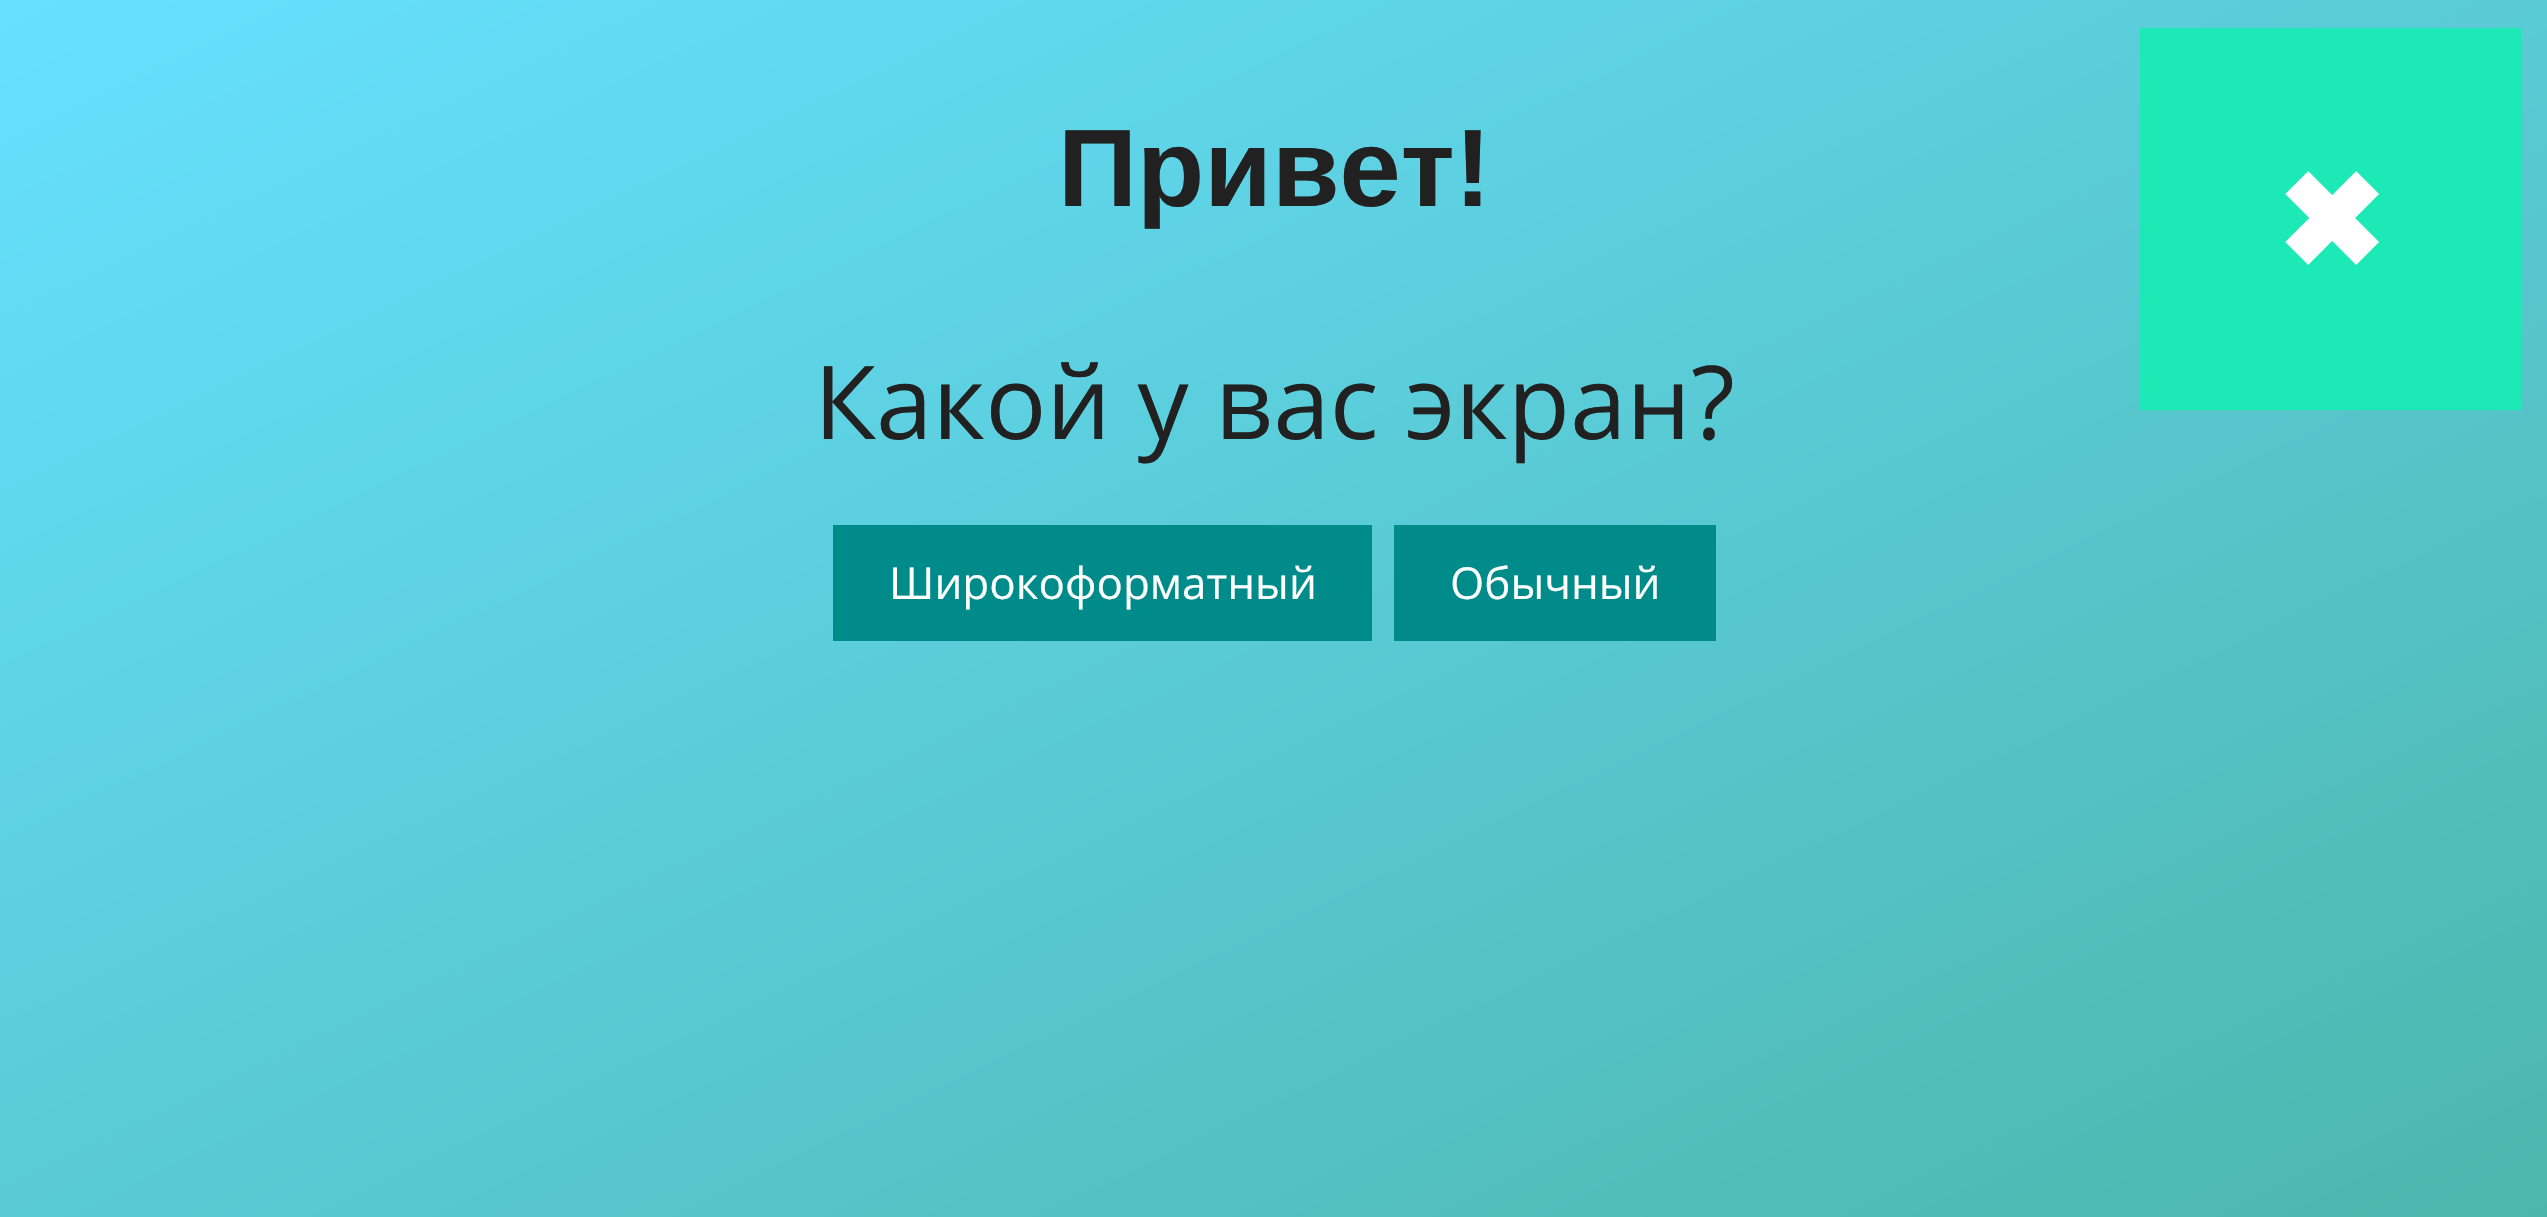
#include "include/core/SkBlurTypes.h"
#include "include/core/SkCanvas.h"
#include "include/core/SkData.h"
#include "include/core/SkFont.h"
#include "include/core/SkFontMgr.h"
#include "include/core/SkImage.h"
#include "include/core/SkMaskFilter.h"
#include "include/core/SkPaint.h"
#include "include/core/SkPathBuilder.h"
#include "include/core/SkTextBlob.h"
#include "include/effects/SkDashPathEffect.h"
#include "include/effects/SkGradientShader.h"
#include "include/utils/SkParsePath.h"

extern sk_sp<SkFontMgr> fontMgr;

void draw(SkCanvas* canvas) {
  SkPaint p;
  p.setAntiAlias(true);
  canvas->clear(SK_ColorWHITE);
  {
    const SkColor colors[] = {SkColorSetRGB(102, 224, 255), SkColorSetRGB(77, 182, 172)};
    const float stops[] = {0, 1};
    const SkPoint ends[] = {{801, -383}, {1749, 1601}};
    p.setShader(SkGradientShader::MakeLinear(ends, colors, stops, 2, SkTileMode::kClamp));
    p.setAlpha(255);
  }
  canvas->drawRect(SkRect::MakeLTRB(0, 0, 2547, 1217), p);
  p.setShader(nullptr);
  p.setColor(SkColorSetRGB(29, 233, 182));
  canvas->drawRect(SkRect::MakeLTRB(2140, 28, 2522, 410), p);
  p.setColor(SkColorSetRGB(0, 139, 139));
  canvas->drawRect(SkRect::MakeLTRB(833, 525, 1372, 641), p);
  canvas->drawRect(SkRect::MakeLTRB(1394, 525, 1716, 641), p);
  SkFont font1(fontMgr->matchFamilyStyle("Liberation Sans", SkFontStyle::Bold()), 110);
  font1.setSubpixel(true);
  p.setColor(SkColorSetRGB(33, 33, 33));
  canvas->drawString("Привет!", 1058, 206, font1, p);
  SkFont font2(fontMgr->matchFamilyStyle("DejaVu Sans", SkFontStyle::Bold()), 132);
  font2.setSubpixel(true);
  p.setColor(SK_ColorWHITE);
  canvas->drawString("✖", 2275, 268, font2, p);
  SkFont font3(fontMgr->matchFamilyStyle("Open Sans", SkFontStyle::Normal()), 101.75f);
  font3.setSubpixel(true);
  p.setColor(SkColorSetRGB(33, 33, 33));
  canvas->drawString("Какой у вас экран", 814, 439, font3, p);
  SkFont font4(fontMgr->matchFamilyStyle("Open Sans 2", SkFontStyle::Normal()), 101.75f);
  font4.setSubpixel(true);
  canvas->drawString("?", 1691, 439, font4, p);
  SkFont font5(fontMgr->matchFamilyStyle("Open Sans", SkFontStyle::Normal()), 44);
  font5.setSubpixel(true);
  p.setColor(SK_ColorWHITE);
  canvas->drawString("Широкоформатный", 889, 599, font5, p);
  canvas->drawString("Обычный", 1450, 599, font5, p);
}
